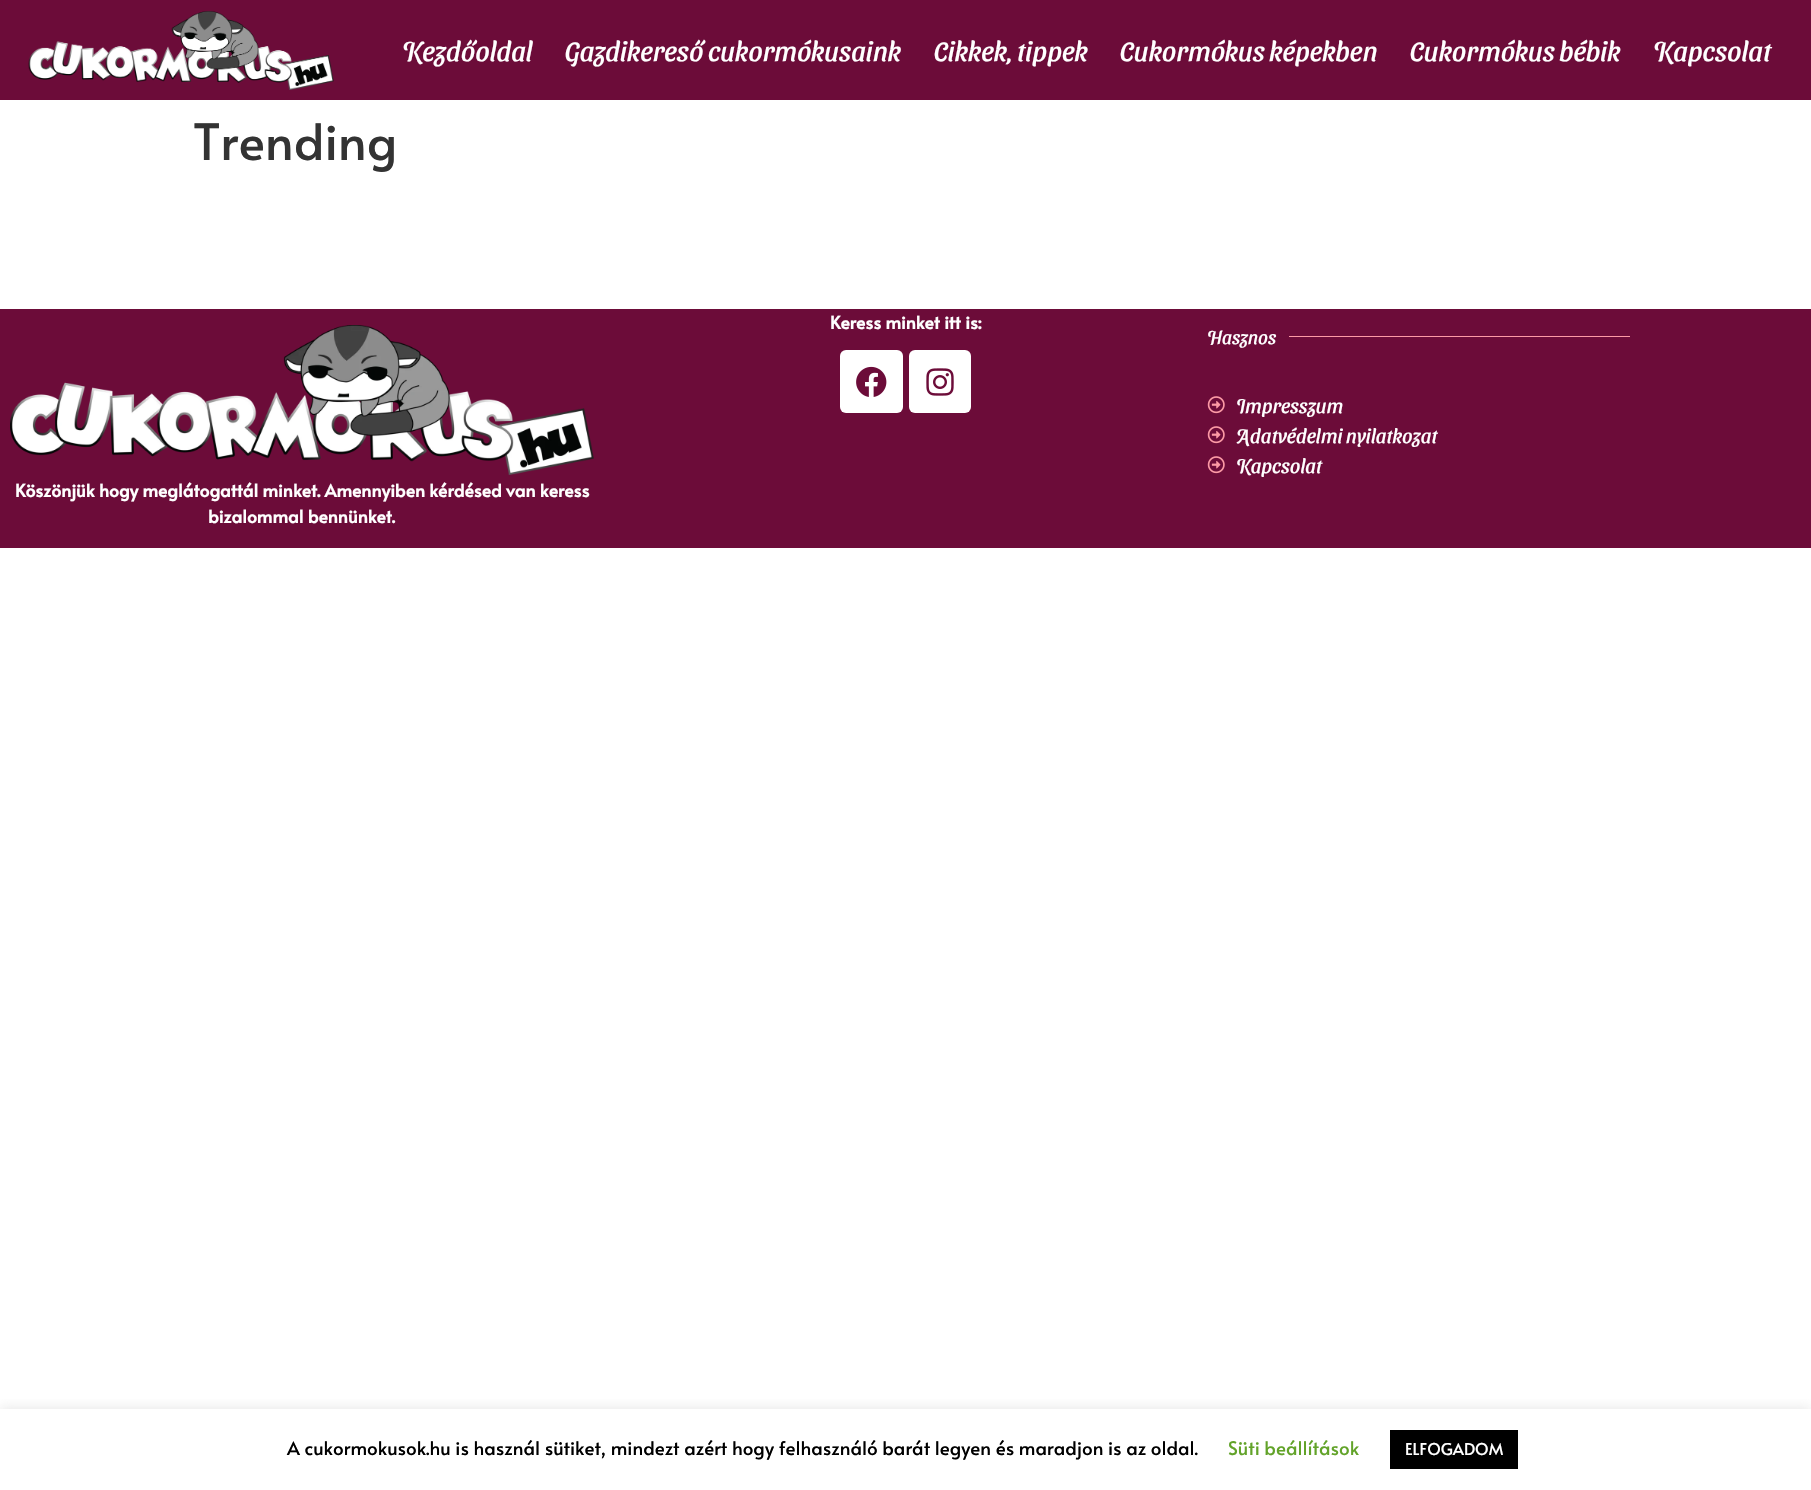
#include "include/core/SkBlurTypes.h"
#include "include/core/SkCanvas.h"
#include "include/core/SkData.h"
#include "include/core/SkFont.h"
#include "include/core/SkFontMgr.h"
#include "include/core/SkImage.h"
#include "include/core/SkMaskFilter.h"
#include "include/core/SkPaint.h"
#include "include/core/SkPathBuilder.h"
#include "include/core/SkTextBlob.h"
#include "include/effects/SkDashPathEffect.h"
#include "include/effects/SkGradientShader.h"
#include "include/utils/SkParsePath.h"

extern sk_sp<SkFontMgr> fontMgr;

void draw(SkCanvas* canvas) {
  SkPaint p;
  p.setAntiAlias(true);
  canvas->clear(SK_ColorWHITE);
  p.setColor(SkColorSetRGB(108, 12, 57));
  canvas->drawRect(SkRect::MakeLTRB(0, 0, 1811, 100), p);
  canvas->drawImageRect(SkImages::DeferredFromEncodedData(SkData::MakeFromFileName("images/1.png")), SkRect::MakeLTRB(28, 11, 334, 90), SkSamplingOptions());
  canvas->drawRect(SkRect::MakeLTRB(0, 309, 1811, 548), p);
  p.setColor(SK_ColorWHITE);
  canvas->drawRoundRect(SkRect::MakeLTRB(840, 350, 903, 413), 6, 6, p);
  canvas->drawImageRect(SkImages::DeferredFromEncodedData(SkData::MakeFromFileName("images/2.png")), SkRect::MakeLTRB(856, 366, 887, 397), SkSamplingOptions());
  canvas->drawRoundRect(SkRect::MakeLTRB(909, 350, 971, 413), 6, 6, p);
  canvas->drawImageRect(SkImages::DeferredFromEncodedData(SkData::MakeFromFileName("images/3.png")), SkRect::MakeLTRB(926, 368, 954, 396), SkSamplingOptions());
  p.setColor(SkColorSetRGB(252, 154, 165));
  canvas->drawRect(SkRect::MakeLTRB(1289, 336, 1630, 337), p);
  canvas->drawImageRect(SkImages::DeferredFromEncodedData(SkData::MakeFromFileName("images/4.png")), SkRect::MakeLTRB(1207, 396, 1225, 414), SkSamplingOptions());
  canvas->drawImageRect(SkImages::DeferredFromEncodedData(SkData::MakeFromFileName("images/4.png")), SkRect::MakeLTRB(1207, 426, 1225, 444), SkSamplingOptions());
  canvas->drawImageRect(SkImages::DeferredFromEncodedData(SkData::MakeFromFileName("images/4.png")), SkRect::MakeLTRB(1207, 456, 1225, 474), SkSamplingOptions());
  canvas->drawImageRect(SkImages::DeferredFromEncodedData(SkData::MakeFromFileName("images/5.png")), SkRect::MakeLTRB(10, 325, 594, 475), SkSamplingOptions());
  canvas->save();
  canvas->clipRect(SkRect::MakeLTRB(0, 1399, 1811, 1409));
  p.setColor(SkColorSetARGB(77, 172, 171, 171));
  p.setMaskFilter(SkMaskFilter::MakeBlur(kNormal_SkBlurStyle, 6));
  canvas->drawRect(SkRect::MakeLTRB(0, 1408, 1811, 1489), p);
  p.setMaskFilter(nullptr);
  canvas->restore();
  p.setColor(SK_ColorBLACK);
  canvas->drawRect(SkRect::MakeLTRB(1390, 1430, 1518, 1469), p);
  SkFont font1(fontMgr->matchFamilyStyle("Sansita Swashed", SkFontStyle::Normal()), 27.5f);
  font1.setSubpixel(true);
  p.setColor(SK_ColorWHITE);
  canvas->drawString("Kezdőoldal", 402, 61, font1, p);
  canvas->drawString("Gazdikereső cukormókusaink", 565, 61, font1, p);
  canvas->drawString("Cikkek, tippek", 934, 61, font1, p);
  canvas->drawString("Cukormókus képekben", 1120, 61, font1, p);
  canvas->drawString("Cukormókus bébik", 1410, 61, font1, p);
  canvas->drawString("Kapcsolat", 1653, 61, font1, p);
  SkFont font2(fontMgr->matchFamilyStyle("Alata", SkFontStyle::Normal()), 50);
  font2.setSubpixel(true);
  p.setColor(SkColorSetRGB(51, 51, 51));
  canvas->drawString("Trending", 193, 160, font2, p);
  SkFont font3(fontMgr->matchFamilyStyle("Alata", SkFontStyle::Bold()), 17.5f);
  font3.setSubpixel(true);
  p.setColor(SK_ColorWHITE);
  canvas->drawString("Keress minket itt is:", 830, 329, font3, p);
  SkFont font4(fontMgr->matchFamilyStyle("Sansita Swashed", SkFontStyle::Normal()), 18.75f);
  font4.setSubpixel(true);
  canvas->drawString("Hasznos", 1207, 344, font4, p);
  SkFont font5(fontMgr->matchFamilyStyle("Sansita Swashed", SkFontStyle::Normal()), 20);
  font5.setSubpixel(true);
  canvas->drawString("Impresszum", 1236, 413, font5, p);
  canvas->drawString("Adatvédelmi nyilatkozat", 1236, 443, font5, p);
  canvas->drawString("Kapcsolat", 1236, 473, font5, p);
  canvas->drawString("Köszönjük hogy meglátogattál minket. Amennyiben kérdésed van keress", 15, 497, font3, p);
  canvas->drawString("bizalommal bennünket.", 208, 523, font3, p);
  SkFont font6(fontMgr->matchFamilyStyle("Alata", SkFontStyle::Normal()), 18.75f);
  font6.setSubpixel(true);
  p.setColor(SK_ColorBLACK);
  canvas->drawString("A cukormokusok.hu is használ sütiket, mindezt azért hogy felhasználó barát legyen és maradjon is az oldal.", 287, 1455, font6, p);
  p.setColor(SkColorSetRGB(98, 163, 41));
  canvas->drawString("Süti beállítások", 1228, 1455, font6, p);
  SkFont font7(fontMgr->matchFamilyStyle("Alata", SkFontStyle::Normal()), 16.25f);
  font7.setSubpixel(true);
  p.setColor(SK_ColorWHITE);
  canvas->drawString("ELFOGADOM", 1405, 1455, font7, p);
}
